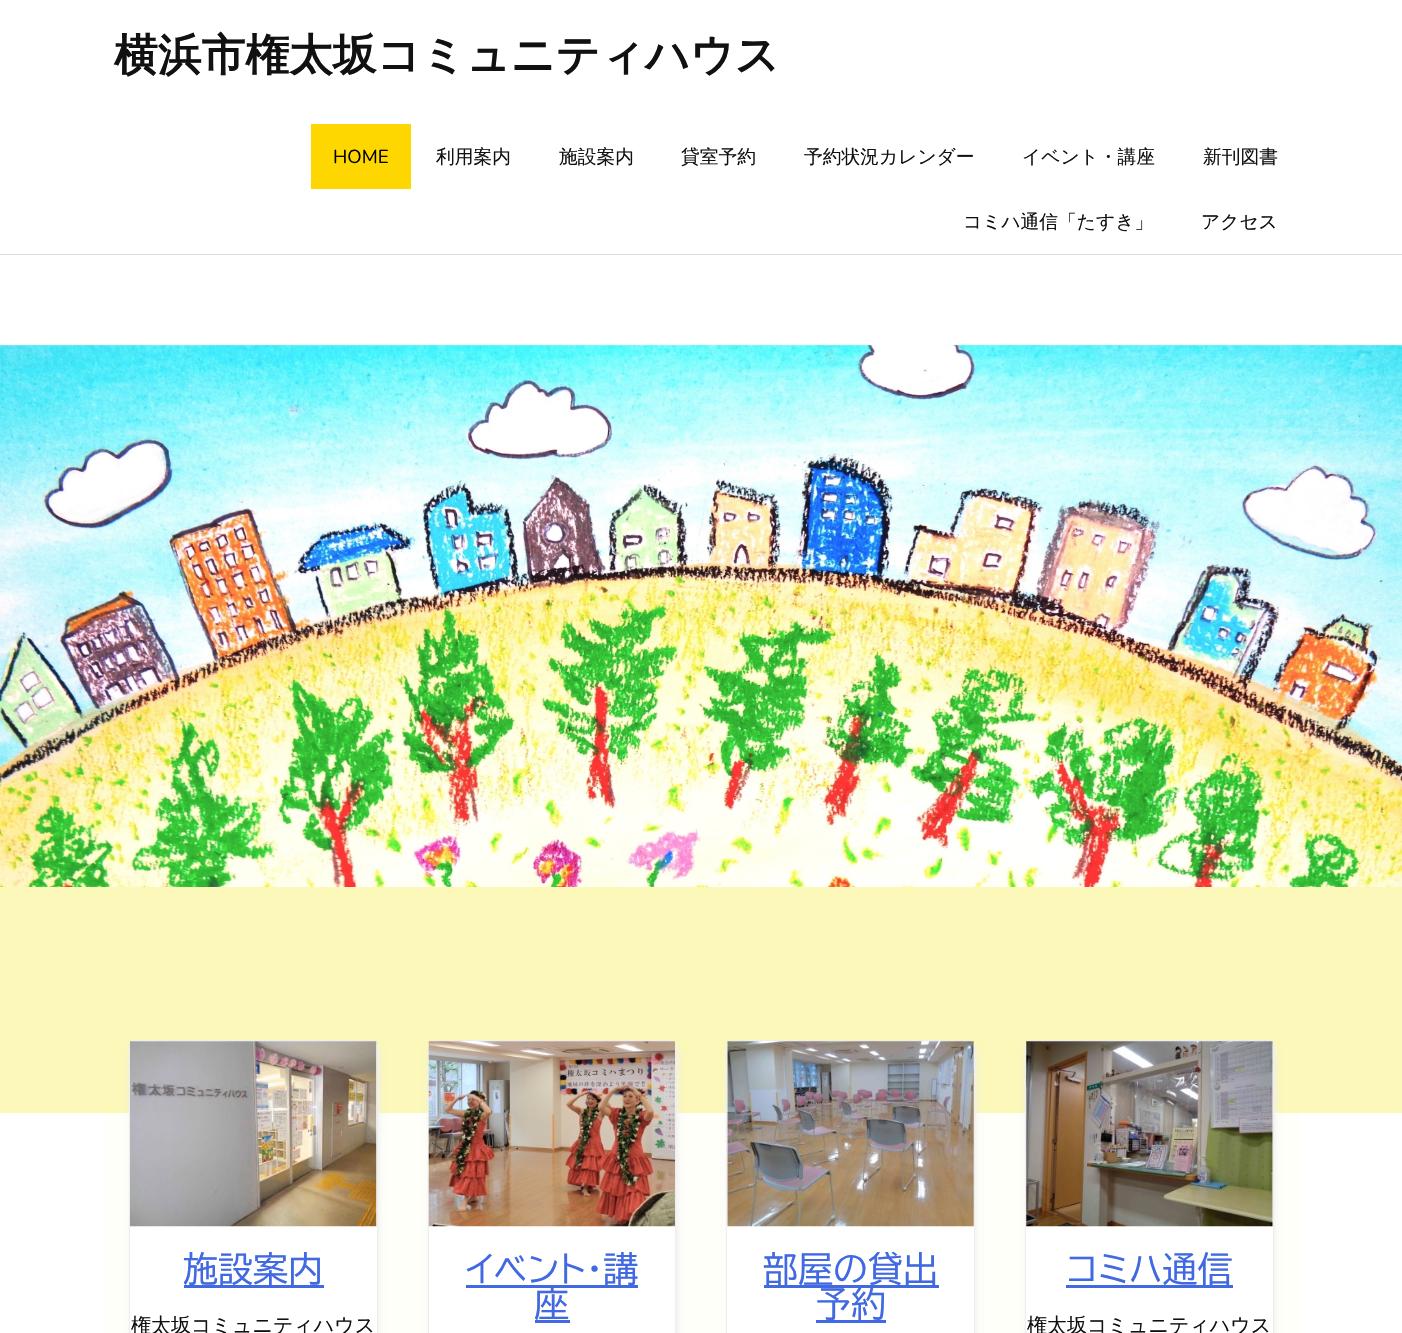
#include "include/core/SkBlurTypes.h"
#include "include/core/SkCanvas.h"
#include "include/core/SkData.h"
#include "include/core/SkFont.h"
#include "include/core/SkFontMgr.h"
#include "include/core/SkImage.h"
#include "include/core/SkMaskFilter.h"
#include "include/core/SkPaint.h"
#include "include/core/SkPathBuilder.h"
#include "include/core/SkTextBlob.h"
#include "include/effects/SkDashPathEffect.h"
#include "include/effects/SkGradientShader.h"
#include "include/utils/SkParsePath.h"

extern sk_sp<SkFontMgr> fontMgr;

void draw(SkCanvas* canvas) {
  SkPaint p;
  p.setAntiAlias(true);
  canvas->clear(SK_ColorWHITE);
  p.setColor(SkColorSetRGB(221, 221, 221));
  canvas->drawRect(SkRect::MakeLTRB(0, 254, 1402, 255), p);
  p.setColor(SkColorSetRGB(255, 215, 0));
  canvas->drawRect(SkRect::MakeLTRB(311, 124, 411, 189), p);
  p.setColor(SkColorSetRGB(252, 248, 186));
  canvas->drawRect(SkRect::MakeLTRB(0, 887, 1402, 1113), p);
  canvas->drawImageRect(SkImages::DeferredFromEncodedData(SkData::MakeFromFileName("images/1.png")), SkRect::MakeLTRB(0, 255, 1402, 887), SkSamplingOptions());
  p.setColor(SkColorSetRGB(255, 255, 250));
  canvas->drawRect(SkRect::MakeLTRB(103, 1113, 1300, 1333), p);
  p.setColor(SkColorSetRGB(238, 238, 238));
  p.setMaskFilter(SkMaskFilter::MakeBlur(kNormal_SkBlurStyle, 3));
  canvas->drawRoundRect(SkRect::MakeLTRB(130, 1046, 379, 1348), 6, 6, p);
  p.setMaskFilter(nullptr);
  p.setColor(SK_ColorWHITE);
  canvas->drawRoundRect(SkRect::MakeLTRB(129.5f, 1040.5f, 377.5f, 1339.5f), 5.5f, 5.5f, p);
  p.setStyle(SkPaint::kStroke_Style);
  p.setStrokeWidth(1);
  p.setColor(SkColorSetRGB(238, 238, 238));
  canvas->drawRoundRect(SkRect::MakeLTRB(129.5f, 1040.5f, 377.5f, 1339.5f), 5.5f, 5.5f, p);
  canvas->drawImageRect(SkImages::DeferredFromEncodedData(SkData::MakeFromFileName("images/2.png")), SkRect::MakeLTRB(130, 1041, 377, 1227), SkSamplingOptions());
  p.setStyle(SkPaint::kFill_Style);
  p.setColor(SkColorSetRGB(65, 105, 225));
  canvas->drawRect(SkRect::MakeLTRB(184, 1285, 324, 1288), p);
  p.setColor(SkColorSetRGB(238, 238, 238));
  p.setMaskFilter(SkMaskFilter::MakeBlur(kNormal_SkBlurStyle, 3));
  canvas->drawRoundRect(SkRect::MakeLTRB(429, 1046, 678, 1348), 6, 6, p);
  p.setMaskFilter(nullptr);
  p.setColor(SK_ColorWHITE);
  canvas->drawRoundRect(SkRect::MakeLTRB(428.5f, 1040.5f, 675.5f, 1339.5f), 5.5f, 5.5f, p);
  p.setStyle(SkPaint::kStroke_Style);
  p.setColor(SkColorSetRGB(238, 238, 238));
  canvas->drawRoundRect(SkRect::MakeLTRB(428.5f, 1040.5f, 675.5f, 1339.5f), 5.5f, 5.5f, p);
  canvas->drawImageRect(SkImages::DeferredFromEncodedData(SkData::MakeFromFileName("images/3.png")), SkRect::MakeLTRB(428, 1041, 675, 1227), SkSamplingOptions());
  p.setStyle(SkPaint::kFill_Style);
  p.setColor(SkColorSetRGB(65, 105, 225));
  canvas->drawRect(SkRect::MakeLTRB(466, 1285, 638, 1288), p);
  canvas->drawRect(SkRect::MakeLTRB(535, 1320, 570, 1323), p);
  p.setColor(SkColorSetRGB(238, 238, 238));
  p.setMaskFilter(SkMaskFilter::MakeBlur(kNormal_SkBlurStyle, 3));
  canvas->drawRoundRect(SkRect::MakeLTRB(728, 1046, 976, 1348), 6, 6, p);
  p.setMaskFilter(nullptr);
  p.setColor(SK_ColorWHITE);
  canvas->drawRoundRect(SkRect::MakeLTRB(726.5f, 1040.5f, 974.5f, 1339.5f), 5.5f, 5.5f, p);
  p.setStyle(SkPaint::kStroke_Style);
  p.setColor(SkColorSetRGB(238, 238, 238));
  canvas->drawRoundRect(SkRect::MakeLTRB(726.5f, 1040.5f, 974.5f, 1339.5f), 5.5f, 5.5f, p);
  canvas->drawImageRect(SkImages::DeferredFromEncodedData(SkData::MakeFromFileName("images/4.png")), SkRect::MakeLTRB(727, 1041, 974, 1227), SkSamplingOptions());
  p.setStyle(SkPaint::kFill_Style);
  p.setColor(SkColorSetRGB(65, 105, 225));
  canvas->drawRect(SkRect::MakeLTRB(764, 1285, 939, 1288), p);
  canvas->drawRect(SkRect::MakeLTRB(816, 1320, 886, 1323), p);
  p.setColor(SkColorSetRGB(238, 238, 238));
  p.setMaskFilter(SkMaskFilter::MakeBlur(kNormal_SkBlurStyle, 3));
  canvas->drawRoundRect(SkRect::MakeLTRB(1026, 1046, 1275, 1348), 6, 6, p);
  p.setMaskFilter(nullptr);
  p.setColor(SK_ColorWHITE);
  canvas->drawRoundRect(SkRect::MakeLTRB(1025.5f, 1040.5f, 1273.5f, 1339.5f), 5.5f, 5.5f, p);
  p.setStyle(SkPaint::kStroke_Style);
  p.setColor(SkColorSetRGB(238, 238, 238));
  canvas->drawRoundRect(SkRect::MakeLTRB(1025.5f, 1040.5f, 1273.5f, 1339.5f), 5.5f, 5.5f, p);
  canvas->drawImageRect(SkImages::DeferredFromEncodedData(SkData::MakeFromFileName("images/5.png")), SkRect::MakeLTRB(1026, 1041, 1273, 1227), SkSamplingOptions());
  p.setStyle(SkPaint::kFill_Style);
  p.setColor(SkColorSetRGB(65, 105, 225));
  canvas->drawRect(SkRect::MakeLTRB(1066, 1285, 1233, 1288), p);
  SkFont font1(fontMgr->matchFamilyStyle("WenQuanYi Zen Hei", SkFontStyle::Bold()), 43.75f);
  font1.setSubpixel(true);
  p.setColor(SkColorSetRGB(17, 17, 17));
  canvas->drawString("横浜市権太坂コミュニティハウス", 114, 70, font1, p);
  SkFont font2(fontMgr->matchFamilyStyle("Nunito", SkFontStyle::Normal()), 18.75f);
  font2.setSubpixel(true);
  p.setColor(SK_ColorBLACK);
  canvas->drawString("HOME", 333, 163, font2, p);
  SkFont font3(fontMgr->matchFamilyStyle("WenQuanYi Zen Hei", SkFontStyle(500, SkFontStyle::kNormal_Width, SkFontStyle::kUpright_Slant)), 18.75f);
  font3.setSubpixel(true);
  p.setColor(SkColorSetRGB(17, 17, 17));
  canvas->drawString("利用案内", 436, 163, font3, p);
  canvas->drawString("施設案内", 559, 163, font3, p);
  canvas->drawString("貸室予約", 681, 163, font3, p);
  canvas->drawString("予約状況カレンダー", 804, 163, font3, p);
  canvas->drawString("イベント・講座", 1022, 163, font3, p);
  canvas->drawString("新刊図書", 1203, 163, font3, p);
  canvas->drawString("コミハ通信「たすき」", 963, 228, font3, p);
  canvas->drawString("アクセス", 1201, 228, font3, p);
  SkFont font4(fontMgr->matchFamilyStyle("BIZ UDPGothic", SkFontStyle::Normal()), 35);
  font4.setSubpixel(true);
  p.setColor(SkColorSetRGB(65, 105, 225));
  canvas->drawString("施設案内", 183, 1282, font4, p);
  SkFont font5(fontMgr->matchFamilyStyle("WenQuanYi Zen Hei", SkFontStyle(500, SkFontStyle::kNormal_Width, SkFontStyle::kUpright_Slant)), 20);
  font5.setSubpixel(true);
  p.setColor(SkColorSetRGB(17, 17, 17));
  canvas->drawString("権太坂コミュニティハウス", 131, 1332, font5, p);
  p.setColor(SkColorSetRGB(65, 105, 225));
  canvas->drawString("イベント・講", 466, 1282, font4, p);
  canvas->drawString("座", 534, 1317, font4, p);
  canvas->drawString("部屋の貸出", 763, 1282, font4, p);
  canvas->drawString("予約", 816, 1317, font4, p);
  canvas->drawString("コミハ通信", 1067, 1282, font4, p);
  p.setColor(SkColorSetRGB(17, 17, 17));
  canvas->drawString("権太坂コミュニティハウス", 1027, 1332, font5, p);
}
